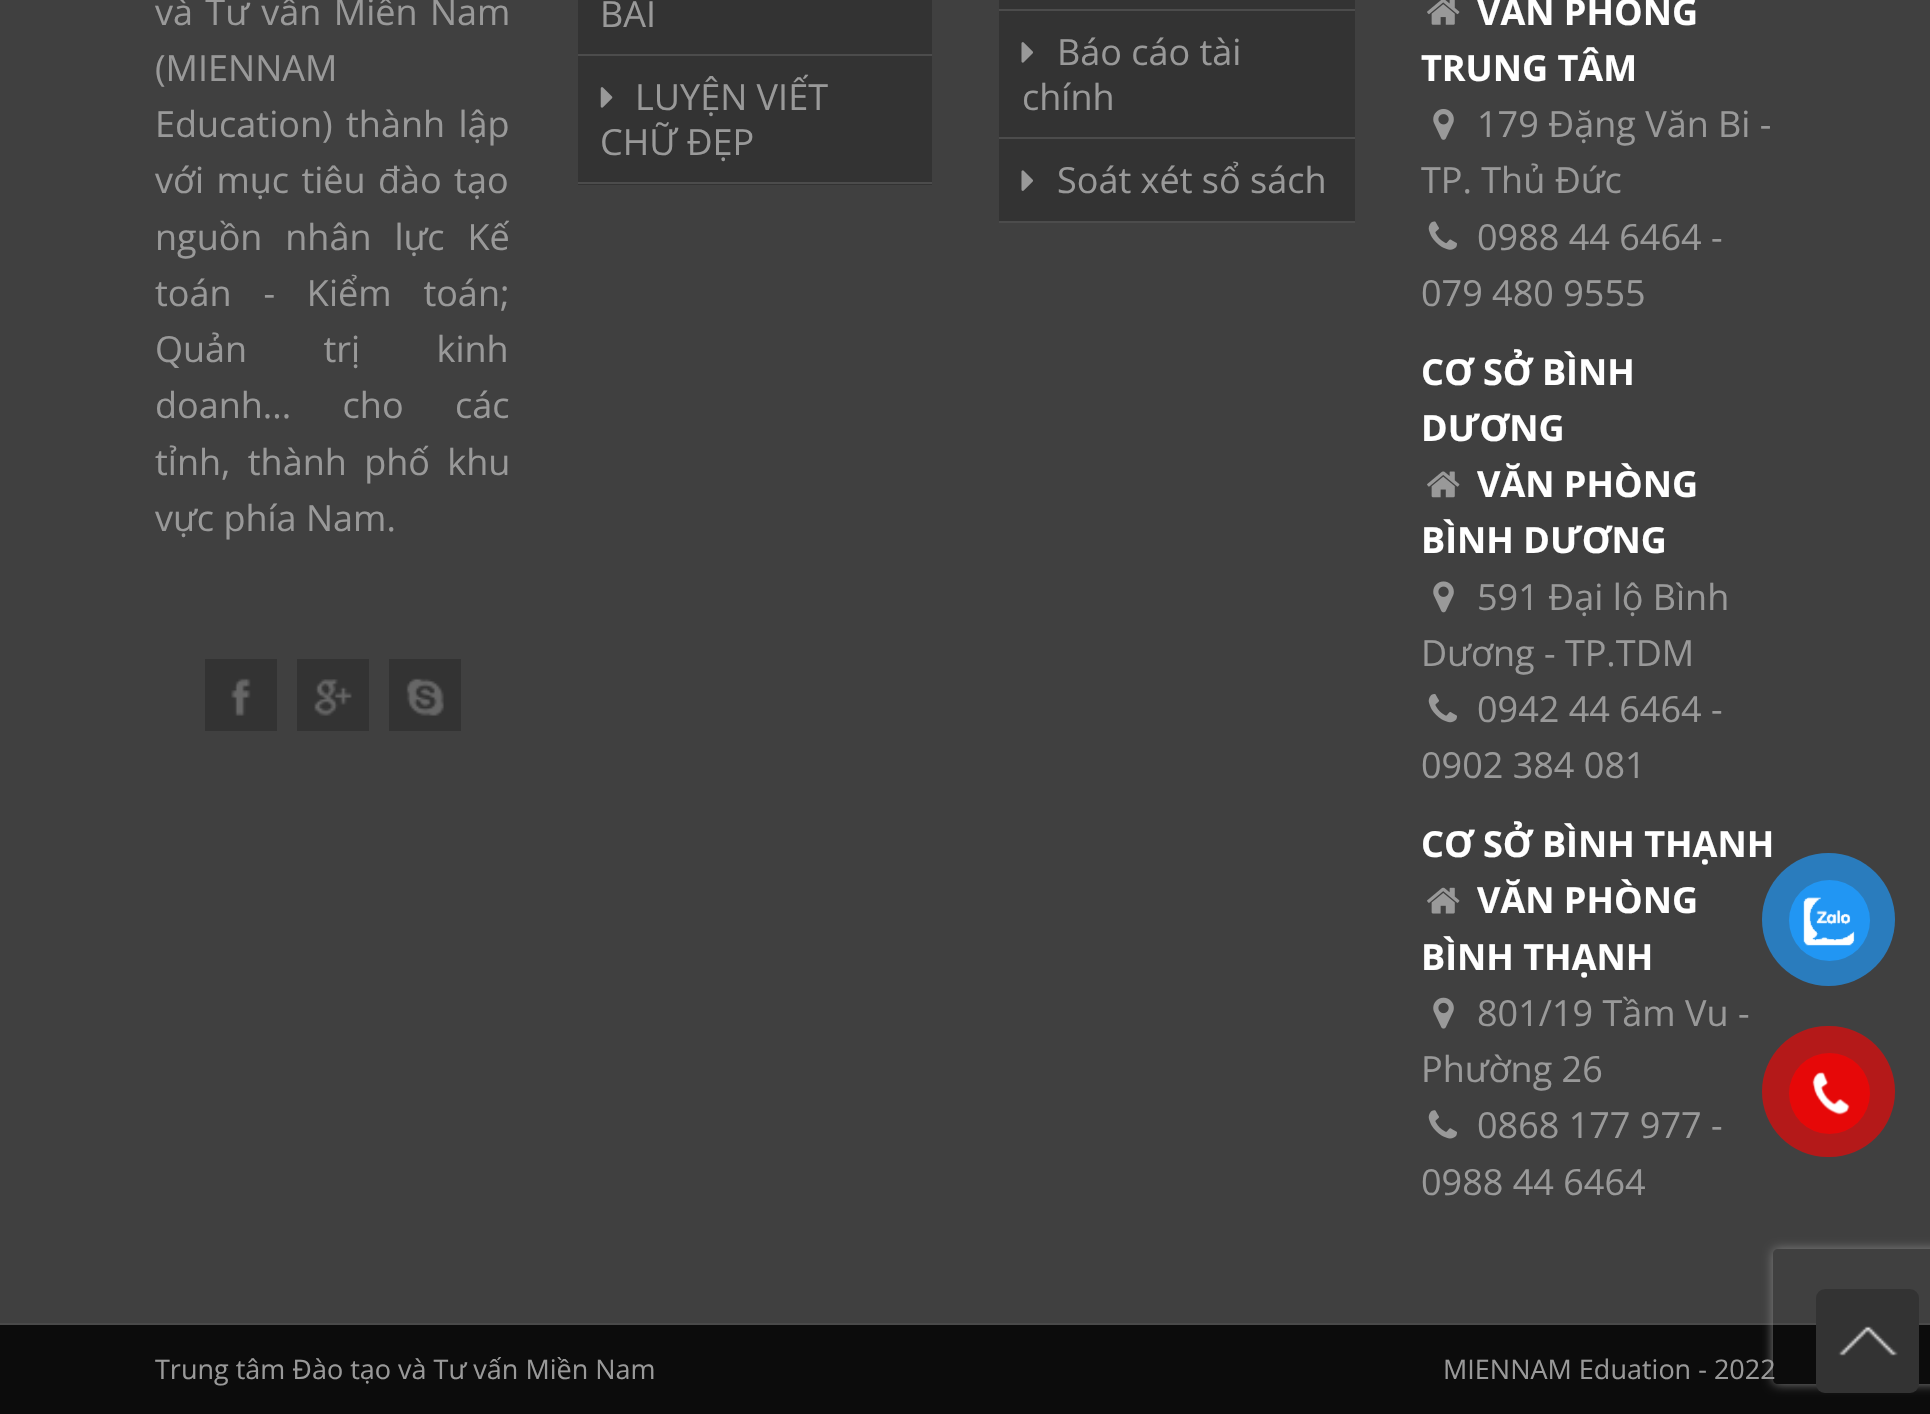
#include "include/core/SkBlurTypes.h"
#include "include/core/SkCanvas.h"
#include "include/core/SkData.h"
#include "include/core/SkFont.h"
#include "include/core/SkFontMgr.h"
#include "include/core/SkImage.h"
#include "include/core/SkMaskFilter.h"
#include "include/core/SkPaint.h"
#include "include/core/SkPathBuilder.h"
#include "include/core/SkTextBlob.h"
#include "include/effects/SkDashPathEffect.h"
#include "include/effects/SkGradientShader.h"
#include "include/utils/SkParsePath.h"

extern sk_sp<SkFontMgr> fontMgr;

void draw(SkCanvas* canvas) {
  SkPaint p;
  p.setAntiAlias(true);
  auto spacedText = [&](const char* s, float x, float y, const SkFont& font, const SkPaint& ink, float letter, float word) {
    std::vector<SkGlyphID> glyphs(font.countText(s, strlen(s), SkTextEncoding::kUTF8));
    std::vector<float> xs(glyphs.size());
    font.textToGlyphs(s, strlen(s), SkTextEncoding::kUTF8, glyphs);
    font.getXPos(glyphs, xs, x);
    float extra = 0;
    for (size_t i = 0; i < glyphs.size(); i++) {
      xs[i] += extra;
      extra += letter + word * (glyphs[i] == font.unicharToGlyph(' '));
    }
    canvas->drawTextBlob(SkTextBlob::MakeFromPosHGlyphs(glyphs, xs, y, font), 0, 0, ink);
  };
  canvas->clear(SkColorSetRGB(64, 64, 64));
  p.setColor(SkColorSetRGB(51, 51, 51));
  canvas->drawRect(SkRect::MakeLTRB(205, 659, 277, 731), p);
  canvas->drawImageRect(SkImages::DeferredFromEncodedData(SkData::MakeFromFileName("images/1.png")), SkRect::MakeLTRB(231, 678, 251, 716), SkSamplingOptions());
  canvas->drawRect(SkRect::MakeLTRB(297, 659, 369, 731), p);
  canvas->drawImageRect(SkImages::DeferredFromEncodedData(SkData::MakeFromFileName("images/2.png")), SkRect::MakeLTRB(314, 679, 352, 716), SkSamplingOptions());
  canvas->drawRect(SkRect::MakeLTRB(389, 659, 461, 731), p);
  canvas->drawImageRect(SkImages::DeferredFromEncodedData(SkData::MakeFromFileName("images/3.png")), SkRect::MakeLTRB(406, 678, 444, 716), SkSamplingOptions());
  canvas->drawRect(SkRect::MakeLTRB(578, 0, 932, 54), p);
  p.setColor(SkColorSetRGB(76, 76, 76));
  canvas->drawRect(SkRect::MakeLTRB(578, 54, 932, 56), p);
  p.setColor(SkColorSetRGB(51, 51, 51));
  canvas->drawRect(SkRect::MakeLTRB(578, 56, 932, 185), p);
  p.setColor(SkColorSetRGB(76, 76, 76));
  canvas->drawRect(SkRect::MakeLTRB(578, 182, 932, 184), p);
  canvas->drawImageRect(SkImages::DeferredFromEncodedData(SkData::MakeFromFileName("images/4.png")), SkRect::MakeLTRB(600, 87, 613, 108), SkSamplingOptions());
  p.setColor(SkColorSetRGB(51, 51, 51));
  canvas->drawRect(SkRect::MakeLTRB(999, 0, 1355, 9), p);
  p.setColor(SkColorSetRGB(76, 76, 76));
  canvas->drawRect(SkRect::MakeLTRB(999, 9, 1355, 11), p);
  p.setColor(SkColorSetRGB(51, 51, 51));
  canvas->drawRect(SkRect::MakeLTRB(999, 11, 1355, 221), p);
  p.setColor(SkColorSetRGB(76, 76, 76));
  canvas->drawRect(SkRect::MakeLTRB(999, 137, 1355, 139), p);
  canvas->drawImageRect(SkImages::DeferredFromEncodedData(SkData::MakeFromFileName("images/5.png")), SkRect::MakeLTRB(1021, 42, 1033, 63), SkSamplingOptions());
  canvas->drawRect(SkRect::MakeLTRB(999, 221, 1355, 223), p);
  canvas->drawImageRect(SkImages::DeferredFromEncodedData(SkData::MakeFromFileName("images/6.png")), SkRect::MakeLTRB(1021, 170, 1033, 191), SkSamplingOptions());
  canvas->drawImageRect(SkImages::DeferredFromEncodedData(SkData::MakeFromFileName("images/7.png")), SkRect::MakeLTRB(1427, 0, 1460, 25), SkSamplingOptions());
  canvas->drawImageRect(SkImages::DeferredFromEncodedData(SkData::MakeFromFileName("images/8.png")), SkRect::MakeLTRB(1433, 109, 1454, 140), SkSamplingOptions());
  canvas->drawImageRect(SkImages::DeferredFromEncodedData(SkData::MakeFromFileName("images/9.png")), SkRect::MakeLTRB(1428, 221, 1457, 250), SkSamplingOptions());
  canvas->drawImageRect(SkImages::DeferredFromEncodedData(SkData::MakeFromFileName("images/10.png")), SkRect::MakeLTRB(1427, 471, 1460, 498), SkSamplingOptions());
  canvas->drawImageRect(SkImages::DeferredFromEncodedData(SkData::MakeFromFileName("images/11.png")), SkRect::MakeLTRB(1433, 581, 1454, 613), SkSamplingOptions());
  canvas->drawImageRect(SkImages::DeferredFromEncodedData(SkData::MakeFromFileName("images/12.png")), SkRect::MakeLTRB(1428, 694, 1457, 723), SkSamplingOptions());
  canvas->drawImageRect(SkImages::DeferredFromEncodedData(SkData::MakeFromFileName("images/13.png")), SkRect::MakeLTRB(1427, 887, 1460, 914), SkSamplingOptions());
  canvas->drawImageRect(SkImages::DeferredFromEncodedData(SkData::MakeFromFileName("images/14.png")), SkRect::MakeLTRB(1433, 997, 1454, 1029), SkSamplingOptions());
  canvas->drawImageRect(SkImages::DeferredFromEncodedData(SkData::MakeFromFileName("images/15.png")), SkRect::MakeLTRB(1428, 1110, 1457, 1139), SkSamplingOptions());
  p.setColor(SkColorSetRGB(12, 12, 12));
  canvas->drawRect(SkRect::MakeLTRB(0, 1325, 1930, 1414), p);
  p.setColor(SkColorSetRGB(74, 74, 74));
  canvas->drawRect(SkRect::MakeLTRB(0, 1323, 1930, 1325), p);
  p.setColor(SkColorSetRGB(180, 25, 25));
  canvas->drawRoundRect(SkRect::MakeLTRB(1762, 1026, 1895, 1157), 65.5f, 65.5f, p);
  p.setColor(SkColorSetRGB(230, 8, 8));
  canvas->drawCircle(1829.5f, 1093.5f, 40.5f, p);
  canvas->drawImageRect(SkImages::DeferredFromEncodedData(SkData::MakeFromFileName("images/17.png")), SkRect::MakeLTRB(1812, 1072, 1850, 1115), SkSamplingOptions());
  canvas->save();
  canvas->clipPath(SkPathBuilder(SkPathFillType::kEvenOdd).moveTo(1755, 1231).lineTo(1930, 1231).lineTo(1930, 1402).lineTo(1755, 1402).close().moveTo(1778, 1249).lineTo(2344, 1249).cubicTo(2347, 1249, 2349, 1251, 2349, 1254).lineTo(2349, 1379).cubicTo(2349, 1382, 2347, 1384, 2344, 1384).lineTo(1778, 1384).cubicTo(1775, 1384, 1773, 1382, 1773, 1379).lineTo(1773, 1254).cubicTo(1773, 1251, 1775, 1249, 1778, 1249).close().detach(), true);
  p.setColor(SkColorSetRGB(128, 128, 128));
  p.setMaskFilter(SkMaskFilter::MakeBlur(kNormal_SkBlurStyle, 5.5f));
  canvas->drawRoundRect(SkRect::MakeLTRB(1773, 1249, 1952, 1384), 5, 5, p);
  p.setMaskFilter(nullptr);
  canvas->restore();
  p.setColor(SkColorSetRGB(51, 51, 51));
  canvas->drawRoundRect(SkRect::MakeLTRB(1816, 1289, 1919, 1393), 9, 9, p);
  canvas->drawImageRect(SkImages::DeferredFromEncodedData(SkData::MakeFromFileName("images/18.png")), SkRect::MakeLTRB(1838, 1326, 1898, 1356), SkSamplingOptions());
  SkFont font1(fontMgr->matchFamilyStyle("Open Sans", SkFontStyle::Normal()), 36);
  font1.setSubpixel(true);
  p.setColor(SkColorSetRGB(153, 153, 153));
  spacedText("và Tư vấn Miền Nam", 155, 25, font1, p, 0, 3);
  canvas->drawString("(MIENNAM", 155, 81, font1, p);
  spacedText("Education) thành lập", 155, 137, font1, p, 0, 4);
  spacedText("với mục tiêu đào tạo", 155, 193, font1, p, 0, 3);
  spacedText("nguồn nhân lực Kế", 155, 250, font1, p, 0, 13.5f);
  spacedText("toán - Kiểm toán;", 155, 306, font1, p, 0, 22.5f);
  spacedText("Quản trị kinh", 155, 362, font1, p, 0, 67);
  spacedText("doanh... cho các", 155, 418, font1, p, 0, 42);
  spacedText("tỉnh, thành phố khu", 155, 475, font1, p, 0, 8);
  canvas->drawString("vực phía Nam.", 155, 531, font1, p);
  canvas->drawString("BÀI", 600, 27, font1, p);
  canvas->drawString("LUYỆN VIẾT", 635, 110, font1, p);
  canvas->drawString("CHỮ ĐẸP", 600, 155, font1, p);
  canvas->drawString("Báo cáo tài", 1057, 65, font1, p);
  canvas->drawString("chính", 1022, 110, font1, p);
  canvas->drawString("Soát xét sổ sách", 1057, 193, font1, p);
  SkFont font2(fontMgr->matchFamilyStyle("Open Sans", SkFontStyle::Bold()), 36);
  font2.setSubpixel(true);
  p.setColor(SK_ColorWHITE);
  canvas->drawString("VĂN PHÒNG", 1477, 25, font2, p);
  canvas->drawString("TRUNG TÂM", 1421, 81, font2, p);
  p.setColor(SkColorSetRGB(153, 153, 153));
  canvas->drawString("179 Đặng Văn Bi -", 1477, 137, font1, p);
  canvas->drawString("TP. Thủ Đức", 1421, 193, font1, p);
  canvas->drawString("0988 44 6464 -", 1477, 250, font1, p);
  canvas->drawString("079 480 9555", 1421, 306, font1, p);
  p.setColor(SK_ColorWHITE);
  canvas->drawString("CƠ SỞ BÌNH", 1421, 385, font2, p);
  canvas->drawString("DƯƠNG", 1421, 441, font2, p);
  canvas->drawString("VĂN PHÒNG", 1477, 497, font2, p);
  canvas->drawString("BÌNH DƯƠNG", 1421, 553, font2, p);
  p.setColor(SkColorSetRGB(153, 153, 153));
  canvas->drawString("591 Đại lộ Bình", 1477, 610, font1, p);
  canvas->drawString("Dương - TP.TDM", 1421, 666, font1, p);
  canvas->drawString("0942 44 6464 -", 1477, 722, font1, p);
  canvas->drawString("0902 384 081", 1421, 778, font1, p);
  p.setColor(SK_ColorWHITE);
  canvas->drawString("CƠ SỞ BÌNH THẠNH", 1421, 857, font2, p);
  canvas->drawString("VĂN PHÒNG", 1477, 913, font2, p);
  canvas->drawString("BÌNH THẠNH", 1421, 970, font2, p);
  p.setColor(SkColorSetRGB(153, 153, 153));
  canvas->drawString("801/19 Tầm Vu -", 1477, 1026, font1, p);
  canvas->drawString("Phường 26", 1421, 1082, font1, p);
  canvas->drawString("0868 177 977 -", 1477, 1138, font1, p);
  canvas->drawString("0988 44 6464", 1421, 1195, font1, p);
  SkFont font3(fontMgr->matchFamilyStyle("Open Sans", SkFontStyle::Normal()), 27);
  font3.setSubpixel(true);
  canvas->drawString("Trung tâm Đào tạo và Tư vấn Miền Nam", 155, 1379, font3, p);
  canvas->drawString("MIENNAM Eduation - 2022", 1443, 1379, font3, p);
  p.setColor(SkColorSetRGB(42, 124, 189));
  canvas->drawCircle(1828.5f, 919.5f, 66.5f, p);
  p.setColor(SkColorSetRGB(33, 150, 243));
  canvas->drawCircle(1829.5f, 920.5f, 40.5f, p);
  canvas->drawImageRect(SkImages::DeferredFromEncodedData(SkData::MakeFromFileName("images/16.png")), SkRect::MakeLTRB(1803, 897, 1855, 946), SkSamplingOptions());
}
